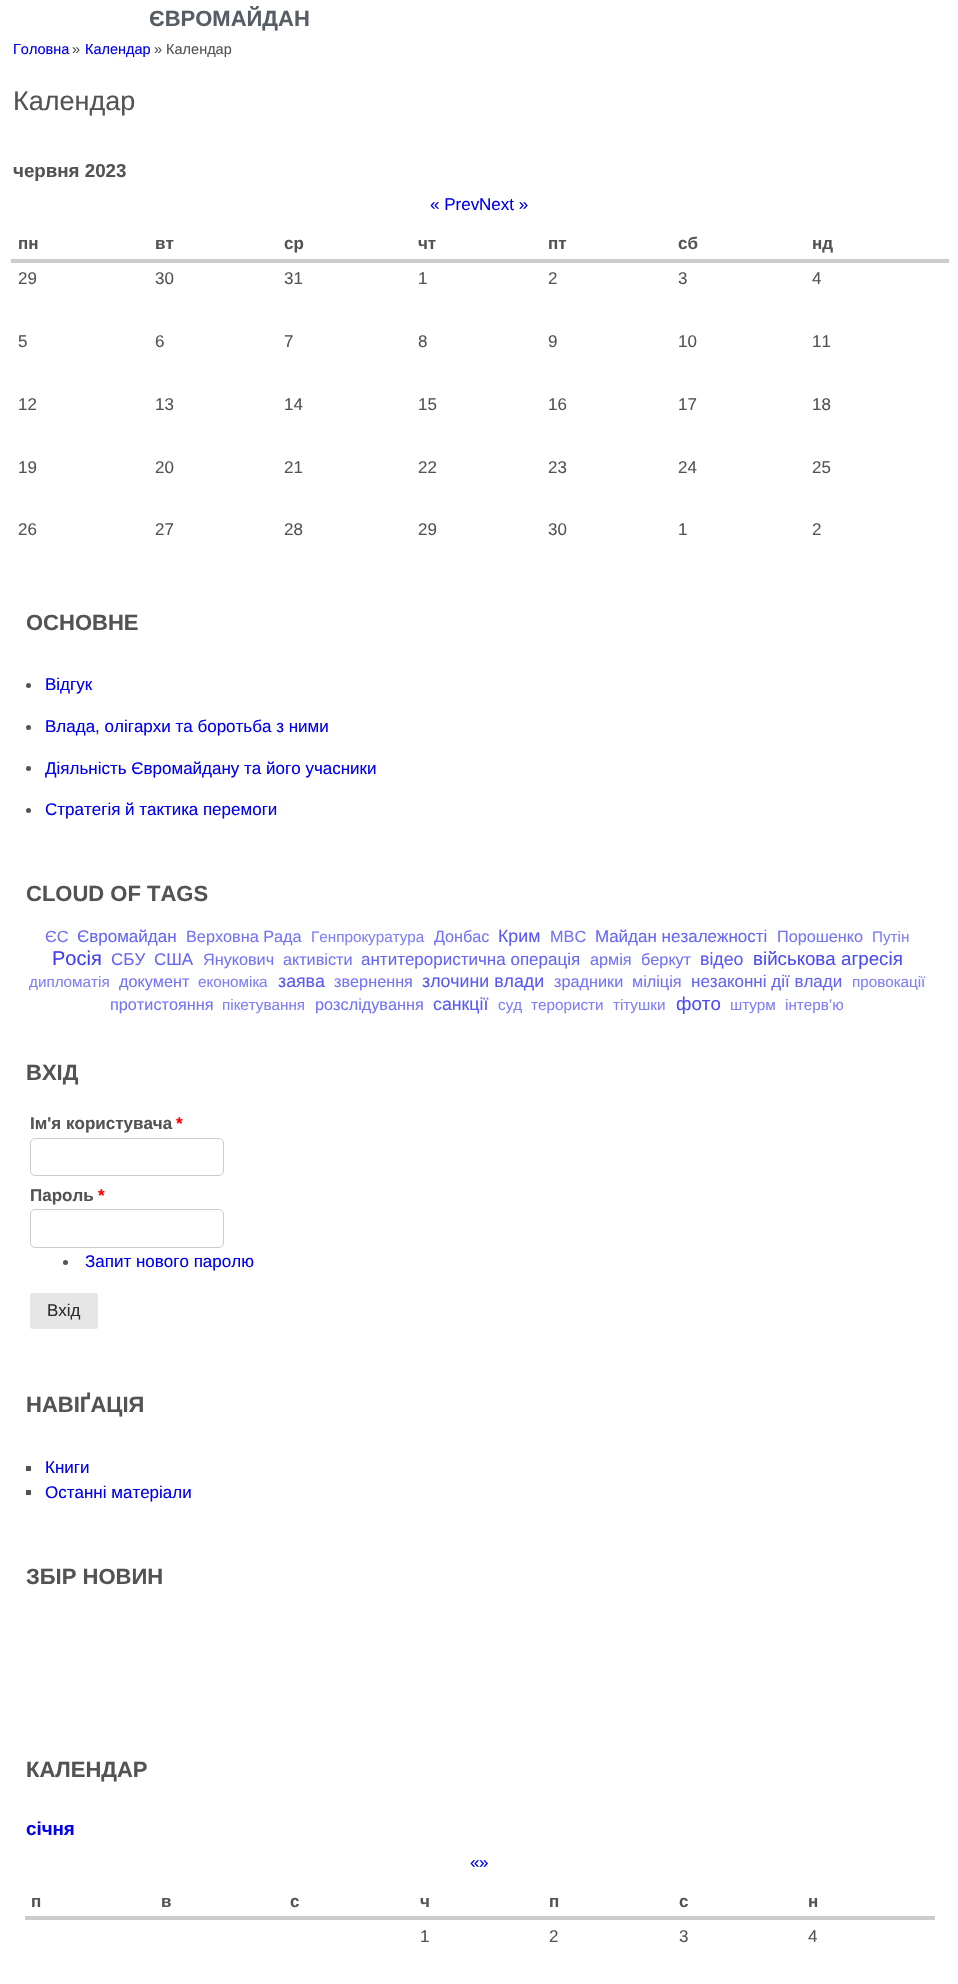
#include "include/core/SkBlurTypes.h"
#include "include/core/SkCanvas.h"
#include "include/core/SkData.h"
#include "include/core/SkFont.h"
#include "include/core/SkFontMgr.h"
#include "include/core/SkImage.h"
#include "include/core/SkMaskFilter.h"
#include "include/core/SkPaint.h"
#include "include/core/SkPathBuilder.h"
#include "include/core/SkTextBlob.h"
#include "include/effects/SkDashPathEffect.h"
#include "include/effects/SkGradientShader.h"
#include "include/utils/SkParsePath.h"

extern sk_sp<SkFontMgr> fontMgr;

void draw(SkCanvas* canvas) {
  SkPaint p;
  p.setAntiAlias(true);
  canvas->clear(SK_ColorWHITE);
  p.setColor(SkColorSetRGB(204, 204, 204));
  canvas->drawRect(SkRect::MakeLTRB(11, 259, 949, 263), p);
  p.setColor(SkColorSetRGB(83, 83, 83));
  canvas->drawCircle(28.5f, 685.5f, 2.5f, p);
  canvas->drawCircle(28.5f, 727.5f, 2.5f, p);
  canvas->drawCircle(28.5f, 768.5f, 2.5f, p);
  canvas->drawCircle(28.5f, 810.5f, 2.5f, p);
  p.setStyle(SkPaint::kStroke_Style);
  p.setStrokeWidth(1);
  p.setColor(SkColorSetRGB(204, 204, 204));
  canvas->drawRoundRect(SkRect::MakeLTRB(30.5f, 1138.5f, 223.5f, 1175.5f), 4.5f, 4.5f, p);
  canvas->drawRoundRect(SkRect::MakeLTRB(30.5f, 1209.5f, 223.5f, 1247.5f), 4.5f, 4.5f, p);
  p.setStyle(SkPaint::kFill_Style);
  p.setColor(SkColorSetRGB(83, 83, 83));
  canvas->drawCircle(65.5f, 1262.5f, 2.5f, p);
  p.setColor(SkColorSetRGB(230, 230, 230));
  canvas->drawRoundRect(SkRect::MakeLTRB(30, 1293, 98, 1329), 2.5f, 2.5f, p);
  p.setColor(SkColorSetRGB(83, 83, 83));
  canvas->drawRect(SkRect::MakeLTRB(26, 1466, 31, 1471), p);
  canvas->drawRect(SkRect::MakeLTRB(26, 1490, 31, 1495), p);
  p.setColor(SkColorSetRGB(204, 204, 204));
  canvas->drawRect(SkRect::MakeLTRB(25, 1916, 935, 1920), p);
  SkFont font1(fontMgr->matchFamilyStyle("Liberation Sans", SkFontStyle::Bold()), 22);
  font1.setSubpixel(true);
  p.setColor(SkColorSetRGB(86, 93, 100));
  canvas->drawString("ЄВРОМАЙДАН", 149, 26, font1, p);
  SkFont font2(fontMgr->matchFamilyStyle("Liberation Sans", SkFontStyle::Normal()), 14.5f);
  font2.setSubpixel(true);
  p.setColor(SkColorSetRGB(0, 0, 238));
  canvas->drawString("Головна", 13, 54, font2, p);
  p.setColor(SkColorSetRGB(83, 83, 83));
  canvas->drawString("»", 72, 54, font2, p);
  p.setColor(SkColorSetRGB(0, 0, 238));
  canvas->drawString("Календар", 85, 54, font2, p);
  p.setColor(SkColorSetRGB(83, 83, 83));
  canvas->drawString("» Календар", 154, 54, font2, p);
  SkFont font3(fontMgr->matchFamilyStyle("Liberation Sans", SkFontStyle::Normal()), 27);
  font3.setSubpixel(true);
  canvas->drawString("Календар", 13, 110, font3, p);
  SkFont font4(fontMgr->matchFamilyStyle("Liberation Sans", SkFontStyle::Bold()), 18.75f);
  font4.setSubpixel(true);
  canvas->drawString("червня 2023", 13, 177, font4, p);
  SkFont font5(fontMgr->matchFamilyStyle("Liberation Sans", SkFontStyle::Normal()), 17);
  font5.setSubpixel(true);
  p.setColor(SkColorSetRGB(0, 0, 238));
  canvas->drawString("« Prev", 430, 210, font5, p);
  canvas->drawString("Next »", 479, 210, font5, p);
  SkFont font6(fontMgr->matchFamilyStyle("Liberation Sans", SkFontStyle::Bold()), 17);
  font6.setSubpixel(true);
  p.setColor(SkColorSetRGB(83, 83, 83));
  canvas->drawString("пн", 18, 249, font6, p);
  canvas->drawString("вт", 155, 249, font6, p);
  canvas->drawString("ср", 284, 249, font6, p);
  canvas->drawString("чт", 418, 249, font6, p);
  canvas->drawString("пт", 548, 249, font6, p);
  canvas->drawString("сб", 678, 249, font6, p);
  canvas->drawString("нд", 812, 249, font6, p);
  canvas->drawString("29", 18, 284, font5, p);
  canvas->drawString("30", 155, 284, font5, p);
  canvas->drawString("31", 284, 284, font5, p);
  canvas->drawString("1", 418, 284, font5, p);
  canvas->drawString("2", 548, 284, font5, p);
  canvas->drawString("3", 678, 284, font5, p);
  canvas->drawString("4", 812, 284, font5, p);
  canvas->drawString("5", 18, 347, font5, p);
  canvas->drawString("6", 155, 347, font5, p);
  canvas->drawString("7", 284, 347, font5, p);
  canvas->drawString("8", 418, 347, font5, p);
  canvas->drawString("9", 548, 347, font5, p);
  canvas->drawString("10", 678, 347, font5, p);
  canvas->drawString("11", 812, 347, font5, p);
  canvas->drawString("12", 18, 410, font5, p);
  canvas->drawString("13", 155, 410, font5, p);
  canvas->drawString("14", 284, 410, font5, p);
  canvas->drawString("15", 418, 410, font5, p);
  canvas->drawString("16", 548, 410, font5, p);
  canvas->drawString("17", 678, 410, font5, p);
  canvas->drawString("18", 812, 410, font5, p);
  canvas->drawString("19", 18, 473, font5, p);
  canvas->drawString("20", 155, 473, font5, p);
  canvas->drawString("21", 284, 473, font5, p);
  canvas->drawString("22", 418, 473, font5, p);
  canvas->drawString("23", 548, 473, font5, p);
  canvas->drawString("24", 678, 473, font5, p);
  canvas->drawString("25", 812, 473, font5, p);
  canvas->drawString("26", 18, 535, font5, p);
  canvas->drawString("27", 155, 535, font5, p);
  canvas->drawString("28", 284, 535, font5, p);
  canvas->drawString("29", 418, 535, font5, p);
  canvas->drawString("30", 548, 535, font5, p);
  canvas->drawString("1", 678, 535, font5, p);
  canvas->drawString("2", 812, 535, font5, p);
  canvas->drawString("ОСНОВНЕ", 26, 630, font1, p);
  p.setColor(SkColorSetRGB(0, 0, 238));
  canvas->drawString("Відгук", 45, 690, font5, p);
  canvas->drawString("Влада, олігархи та боротьба з ними", 45, 732, font5, p);
  canvas->drawString("Діяльність Євромайдану та його учасники", 45, 774, font5, p);
  canvas->drawString("Стратегія й тактика перемоги", 45, 815, font5, p);
  p.setColor(SkColorSetRGB(83, 83, 83));
  canvas->drawString("CLOUD OF TAGS", 26, 901, font1, p);
  SkFont font7(fontMgr->matchFamilyStyle("Liberation Sans", SkFontStyle::Normal()), 16.25f);
  font7.setSubpixel(true);
  p.setColor(SkColorSetRGB(115, 115, 246));
  canvas->drawString("ЄС", 45, 942, font7, p);
  p.setColor(SkColorSetRGB(102, 102, 245));
  canvas->drawString("Євромайдан", 77, 942, font5, p);
  p.setColor(SkColorSetRGB(115, 115, 246));
  canvas->drawString("Верховна Рада", 186, 942, font7, p);
  SkFont font8(fontMgr->matchFamilyStyle("Liberation Sans", SkFontStyle::Normal()), 15.25f);
  font8.setSubpixel(true);
  p.setColor(SkColorSetRGB(128, 128, 247));
  canvas->drawString("Генпрокуратура", 311, 942, font8, p);
  p.setColor(SkColorSetRGB(115, 115, 246));
  canvas->drawString("Донбас", 434, 942, font7, p);
  SkFont font9(fontMgr->matchFamilyStyle("Liberation Sans", SkFontStyle::Normal()), 17.75f);
  font9.setSubpixel(true);
  p.setColor(SkColorSetRGB(89, 89, 244));
  canvas->drawString("Крим", 498, 942, font9, p);
  p.setColor(SkColorSetRGB(115, 115, 246));
  canvas->drawString("МВС", 550, 942, font7, p);
  p.setColor(SkColorSetRGB(102, 102, 245));
  canvas->drawString("Майдан незалежності", 595, 942, font5, p);
  p.setColor(SkColorSetRGB(115, 115, 246));
  canvas->drawString("Порошенко", 777, 942, font7, p);
  p.setColor(SkColorSetRGB(128, 128, 247));
  canvas->drawString("Путін", 872, 942, font8, p);
  SkFont font10(fontMgr->matchFamilyStyle("Liberation Sans", SkFontStyle::Normal()), 20);
  font10.setSubpixel(true);
  p.setColor(SkColorSetRGB(64, 64, 242));
  canvas->drawString("Росія", 52, 965, font10, p);
  p.setColor(SkColorSetRGB(102, 102, 245));
  canvas->drawString("СБУ", 111, 965, font5, p);
  canvas->drawString("США", 154, 965, font5, p);
  p.setColor(SkColorSetRGB(115, 115, 246));
  canvas->drawString("Янукович", 203, 965, font7, p);
  canvas->drawString("активісти", 283, 965, font7, p);
  p.setColor(SkColorSetRGB(102, 102, 245));
  canvas->drawString("антитерористична операція", 361, 965, font5, p);
  p.setColor(SkColorSetRGB(115, 115, 246));
  canvas->drawString("армія", 590, 965, font7, p);
  canvas->drawString("беркут", 641, 965, font7, p);
  p.setColor(SkColorSetRGB(89, 89, 244));
  canvas->drawString("відео", 700, 965, font9, p);
  SkFont font11(fontMgr->matchFamilyStyle("Liberation Sans", SkFontStyle::Normal()), 18.75f);
  font11.setSubpixel(true);
  p.setColor(SkColorSetRGB(77, 77, 243));
  canvas->drawString("військова агресія", 753, 965, font11, p);
  p.setColor(SkColorSetRGB(128, 128, 247));
  canvas->drawString("дипломатія", 29, 987, font8, p);
  p.setColor(SkColorSetRGB(115, 115, 246));
  canvas->drawString("документ", 119, 987, font7, p);
  p.setColor(SkColorSetRGB(128, 128, 247));
  canvas->drawString("економіка", 198, 987, font8, p);
  p.setColor(SkColorSetRGB(89, 89, 244));
  canvas->drawString("заява", 278, 987, font9, p);
  p.setColor(SkColorSetRGB(115, 115, 246));
  canvas->drawString("звернення", 334, 987, font7, p);
  p.setColor(SkColorSetRGB(89, 89, 244));
  canvas->drawString("злочини влади", 422, 987, font9, p);
  p.setColor(SkColorSetRGB(115, 115, 246));
  canvas->drawString("зрадники", 554, 987, font7, p);
  canvas->drawString("міліція", 632, 987, font7, p);
  p.setColor(SkColorSetRGB(102, 102, 245));
  canvas->drawString("незаконні дії влади", 691, 987, font5, p);
  p.setColor(SkColorSetRGB(128, 128, 247));
  canvas->drawString("провокації", 852, 987, font8, p);
  p.setColor(SkColorSetRGB(115, 115, 246));
  canvas->drawString("протистояння", 110, 1010, font7, p);
  p.setColor(SkColorSetRGB(128, 128, 247));
  canvas->drawString("пікетування", 222, 1010, font8, p);
  p.setColor(SkColorSetRGB(115, 115, 246));
  canvas->drawString("розслідування", 315, 1010, font7, p);
  p.setColor(SkColorSetRGB(89, 89, 244));
  canvas->drawString("санкції", 433, 1010, font9, p);
  p.setColor(SkColorSetRGB(128, 128, 247));
  canvas->drawString("суд", 498, 1010, font8, p);
  canvas->drawString("терористи", 531, 1010, font8, p);
  canvas->drawString("тітушки", 613, 1010, font8, p);
  p.setColor(SkColorSetRGB(77, 77, 243));
  canvas->drawString("фото", 676, 1010, font11, p);
  p.setColor(SkColorSetRGB(128, 128, 247));
  canvas->drawString("штурм", 730, 1010, font8, p);
  canvas->drawString("інтерв’ю", 785, 1010, font8, p);
  p.setColor(SkColorSetRGB(83, 83, 83));
  canvas->drawString("ВХІД", 26, 1080, font1, p);
  canvas->drawString("Ім'я користувача", 30, 1129, font6, p);
  p.setColor(SkColorSetRGB(255, 0, 0));
  canvas->drawString("*", 176, 1129, font6, p);
  p.setColor(SkColorSetRGB(83, 83, 83));
  canvas->drawString("Пароль", 30, 1201, font6, p);
  p.setColor(SkColorSetRGB(255, 0, 0));
  canvas->drawString("*", 98, 1201, font6, p);
  p.setColor(SkColorSetRGB(0, 0, 238));
  canvas->drawString("Запит нового паролю", 85, 1267, font5, p);
  p.setColor(SkColorSetRGB(46, 46, 46));
  canvas->drawString("Вхід", 47, 1316, font5, p);
  p.setColor(SkColorSetRGB(83, 83, 83));
  canvas->drawString("НАВІҐАЦІЯ", 26, 1412, font1, p);
  p.setColor(SkColorSetRGB(0, 0, 238));
  canvas->drawString("Книги", 45, 1473, font5, p);
  canvas->drawString("Останні матеріали", 45, 1498, font5, p);
  p.setColor(SkColorSetRGB(83, 83, 83));
  canvas->drawString("ЗБІР НОВИН", 26, 1584, font1, p);
  canvas->drawString("КАЛЕНДАР", 26, 1777, font1, p);
  p.setColor(SkColorSetRGB(0, 0, 238));
  canvas->drawString("січня", 26, 1835, font4, p);
  canvas->drawString("«", 470, 1868, font5, p);
  canvas->drawString("»", 479, 1868, font5, p);
  p.setColor(SkColorSetRGB(83, 83, 83));
  canvas->drawString("п", 31, 1907, font6, p);
  canvas->drawString("в", 161, 1907, font6, p);
  canvas->drawString("с", 290, 1907, font6, p);
  canvas->drawString("ч", 420, 1907, font6, p);
  canvas->drawString("п", 549, 1907, font6, p);
  canvas->drawString("с", 679, 1907, font6, p);
  canvas->drawString("н", 808, 1907, font6, p);
  canvas->drawString("1", 420, 1942, font5, p);
  canvas->drawString("2", 549, 1942, font5, p);
  canvas->drawString("3", 679, 1942, font5, p);
  canvas->drawString("4", 808, 1942, font5, p);
}
